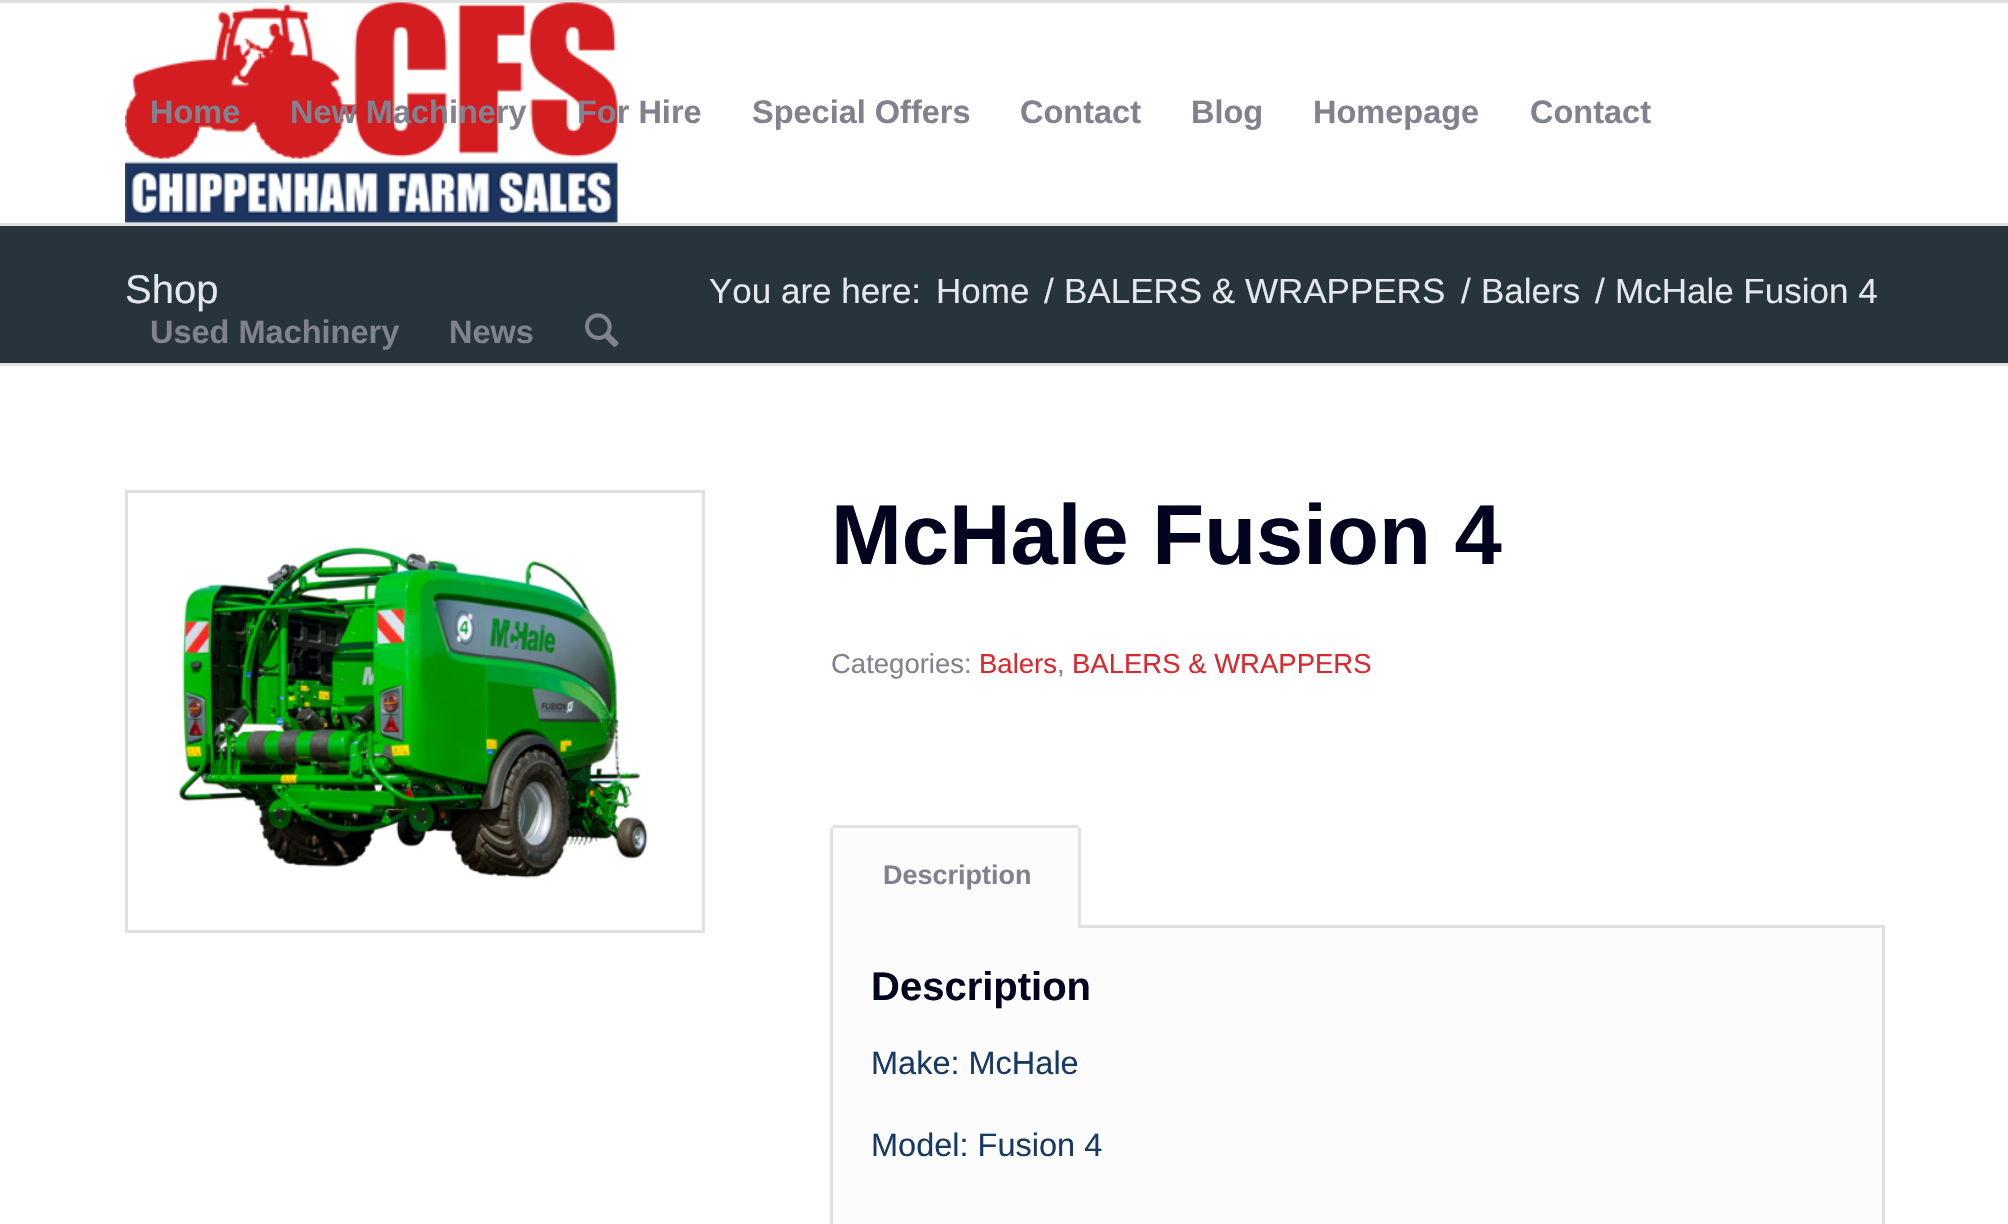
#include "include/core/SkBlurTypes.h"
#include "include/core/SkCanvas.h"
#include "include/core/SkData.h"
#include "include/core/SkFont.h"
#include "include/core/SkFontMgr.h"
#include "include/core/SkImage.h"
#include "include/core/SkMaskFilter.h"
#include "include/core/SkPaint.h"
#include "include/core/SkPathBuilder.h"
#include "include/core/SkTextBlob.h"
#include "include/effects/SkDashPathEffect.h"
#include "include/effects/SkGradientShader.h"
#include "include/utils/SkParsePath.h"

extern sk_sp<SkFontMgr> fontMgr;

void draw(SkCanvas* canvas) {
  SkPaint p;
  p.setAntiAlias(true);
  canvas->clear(SK_ColorWHITE);
  p.setColor(SkColorSetRGB(225, 225, 225));
  canvas->drawRect(SkRect::MakeLTRB(0, 0, 2008, 3), p);
  canvas->drawRect(SkRect::MakeLTRB(0, 223, 2008, 226), p);
  canvas->drawImageRect(SkImages::DeferredFromEncodedData(SkData::MakeFromFileName("images/1.png")), SkRect::MakeLTRB(125, 2, 618, 223), SkSamplingOptions());
  p.setColor(SkColorSetRGB(40, 52, 60));
  canvas->drawRect(SkRect::MakeLTRB(0, 226, 2008, 363), p);
  canvas->drawImageRect(SkImages::DeferredFromEncodedData(SkData::MakeFromFileName("images/2.png")), SkRect::MakeLTRB(585, 313, 619, 347), SkSamplingOptions());
  p.setColor(SkColorSetRGB(225, 225, 225));
  canvas->drawRect(SkRect::MakeLTRB(0, 363, 2008, 366), p);
  p.setStyle(SkPaint::kStroke_Style);
  p.setStrokeWidth(3);
  canvas->drawRect(SkRect::MakeLTRB(126.5f, 491.5f, 703.5f, 931.5f), p);
  canvas->drawImageRect(SkImages::DeferredFromEncodedData(SkData::MakeFromFileName("images/3.png")), SkRect::MakeLTRB(179, 547, 648, 878), SkSamplingOptions());
  p.setStyle(SkPaint::kFill_Style);
  p.setColor(SkColorSetRGB(252, 252, 252));
  canvas->drawRect(SkRect::MakeLTRB(831.5f, 926.5f, 1883.5f, 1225.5f), p);
  p.setStyle(SkPaint::kStroke_Style);
  p.setColor(SkColorSetRGB(225, 225, 225));
  canvas->drawRect(SkRect::MakeLTRB(831.5f, 926.5f, 1883.5f, 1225.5f), p);
  p.setStyle(SkPaint::kFill_Style);
  p.setColor(SkColorSetRGB(252, 252, 252));
  canvas->drawRect(SkRect::MakeLTRB(830, 825, 1080, 928), p);
  p.setColor(SkColorSetRGB(225, 225, 225));
  canvas->drawRect(SkRect::MakeLTRB(833, 825, 1078, 828), p);
  canvas->drawRect(SkRect::MakeLTRB(1078, 828, 1081, 928), p);
  canvas->drawRect(SkRect::MakeLTRB(830, 828, 833, 928), p);
  SkFont font1(fontMgr->matchFamilyStyle("Liberation Sans", SkFontStyle::Bold()), 32.5f);
  font1.setSubpixel(true);
  p.setColor(SkColorSetRGB(129, 130, 144));
  canvas->drawString("Home", 150, 123, font1, p);
  canvas->drawString("New Machinery", 290, 123, font1, p);
  canvas->drawString("For Hire", 577, 123, font1, p);
  canvas->drawString("Special Offers", 752, 123, font1, p);
  canvas->drawString("Contact", 1020, 123, font1, p);
  canvas->drawString("Blog", 1191, 123, font1, p);
  canvas->drawString("Homepage", 1313, 123, font1, p);
  canvas->drawString("Contact", 1530, 123, font1, p);
  canvas->drawString("Used Machinery", 150, 343, font1, p);
  canvas->drawString("News", 449, 343, font1, p);
  SkFont font2(fontMgr->matchFamilyStyle("Liberation Sans", SkFontStyle::Normal()), 40);
  font2.setSubpixel(true);
  p.setColor(SkColorSetRGB(228, 230, 240));
  canvas->drawString("Shop", 125, 303, font2, p);
  SkFont font3(fontMgr->matchFamilyStyle("Liberation Sans", SkFontStyle::Normal()), 35);
  font3.setSubpixel(true);
  canvas->drawString("You are here:", 709, 303, font3, p);
  canvas->drawString("Home", 936, 303, font3, p);
  canvas->drawString("/", 1044, 303, font3, p);
  canvas->drawString("BALERS & WRAPPERS", 1064, 303, font3, p);
  canvas->drawString("/", 1461, 303, font3, p);
  canvas->drawString("Balers", 1481, 303, font3, p);
  canvas->drawString("/", 1595, 303, font3, p);
  canvas->drawString("McHale Fusion 4", 1615, 303, font3, p);
  SkFont font4(fontMgr->matchFamilyStyle("Liberation Sans", SkFontStyle::Bold()), 85);
  font4.setSubpixel(true);
  p.setColor(SkColorSetRGB(3, 5, 32));
  canvas->drawString("McHale Fusion 4", 831, 564, font4, p);
  SkFont font5(fontMgr->matchFamilyStyle("Liberation Sans", SkFontStyle::Normal()), 27.5f);
  font5.setSubpixel(true);
  p.setColor(SkColorSetRGB(129, 130, 144));
  canvas->drawString("Categories:", 831, 673, font5, p);
  p.setColor(SkColorSetRGB(217, 41, 47));
  canvas->drawString("Balers", 979, 673, font5, p);
  p.setColor(SkColorSetRGB(129, 130, 144));
  canvas->drawString(",", 1057, 673, font5, p);
  p.setColor(SkColorSetRGB(217, 41, 47));
  canvas->drawString("BALERS & WRAPPERS", 1072, 673, font5, p);
  SkFont font6(fontMgr->matchFamilyStyle("Liberation Sans", SkFontStyle::Bold()), 27);
  font6.setSubpixel(true);
  p.setColor(SkColorSetRGB(129, 130, 144));
  canvas->drawString("Description", 883, 884, font6, p);
  SkFont font7(fontMgr->matchFamilyStyle("Liberation Sans", SkFontStyle::Bold()), 40);
  font7.setSubpixel(true);
  p.setColor(SkColorSetRGB(3, 5, 32));
  canvas->drawString("Description", 871, 1000, font7, p);
  SkFont font8(fontMgr->matchFamilyStyle("Liberation Sans", SkFontStyle::Normal()), 32.5f);
  font8.setSubpixel(true);
  p.setColor(SkColorSetRGB(23, 57, 99));
  canvas->drawString("Make: McHale", 871, 1074, font8, p);
  canvas->drawString("Model: Fusion 4", 871, 1156, font8, p);
}
